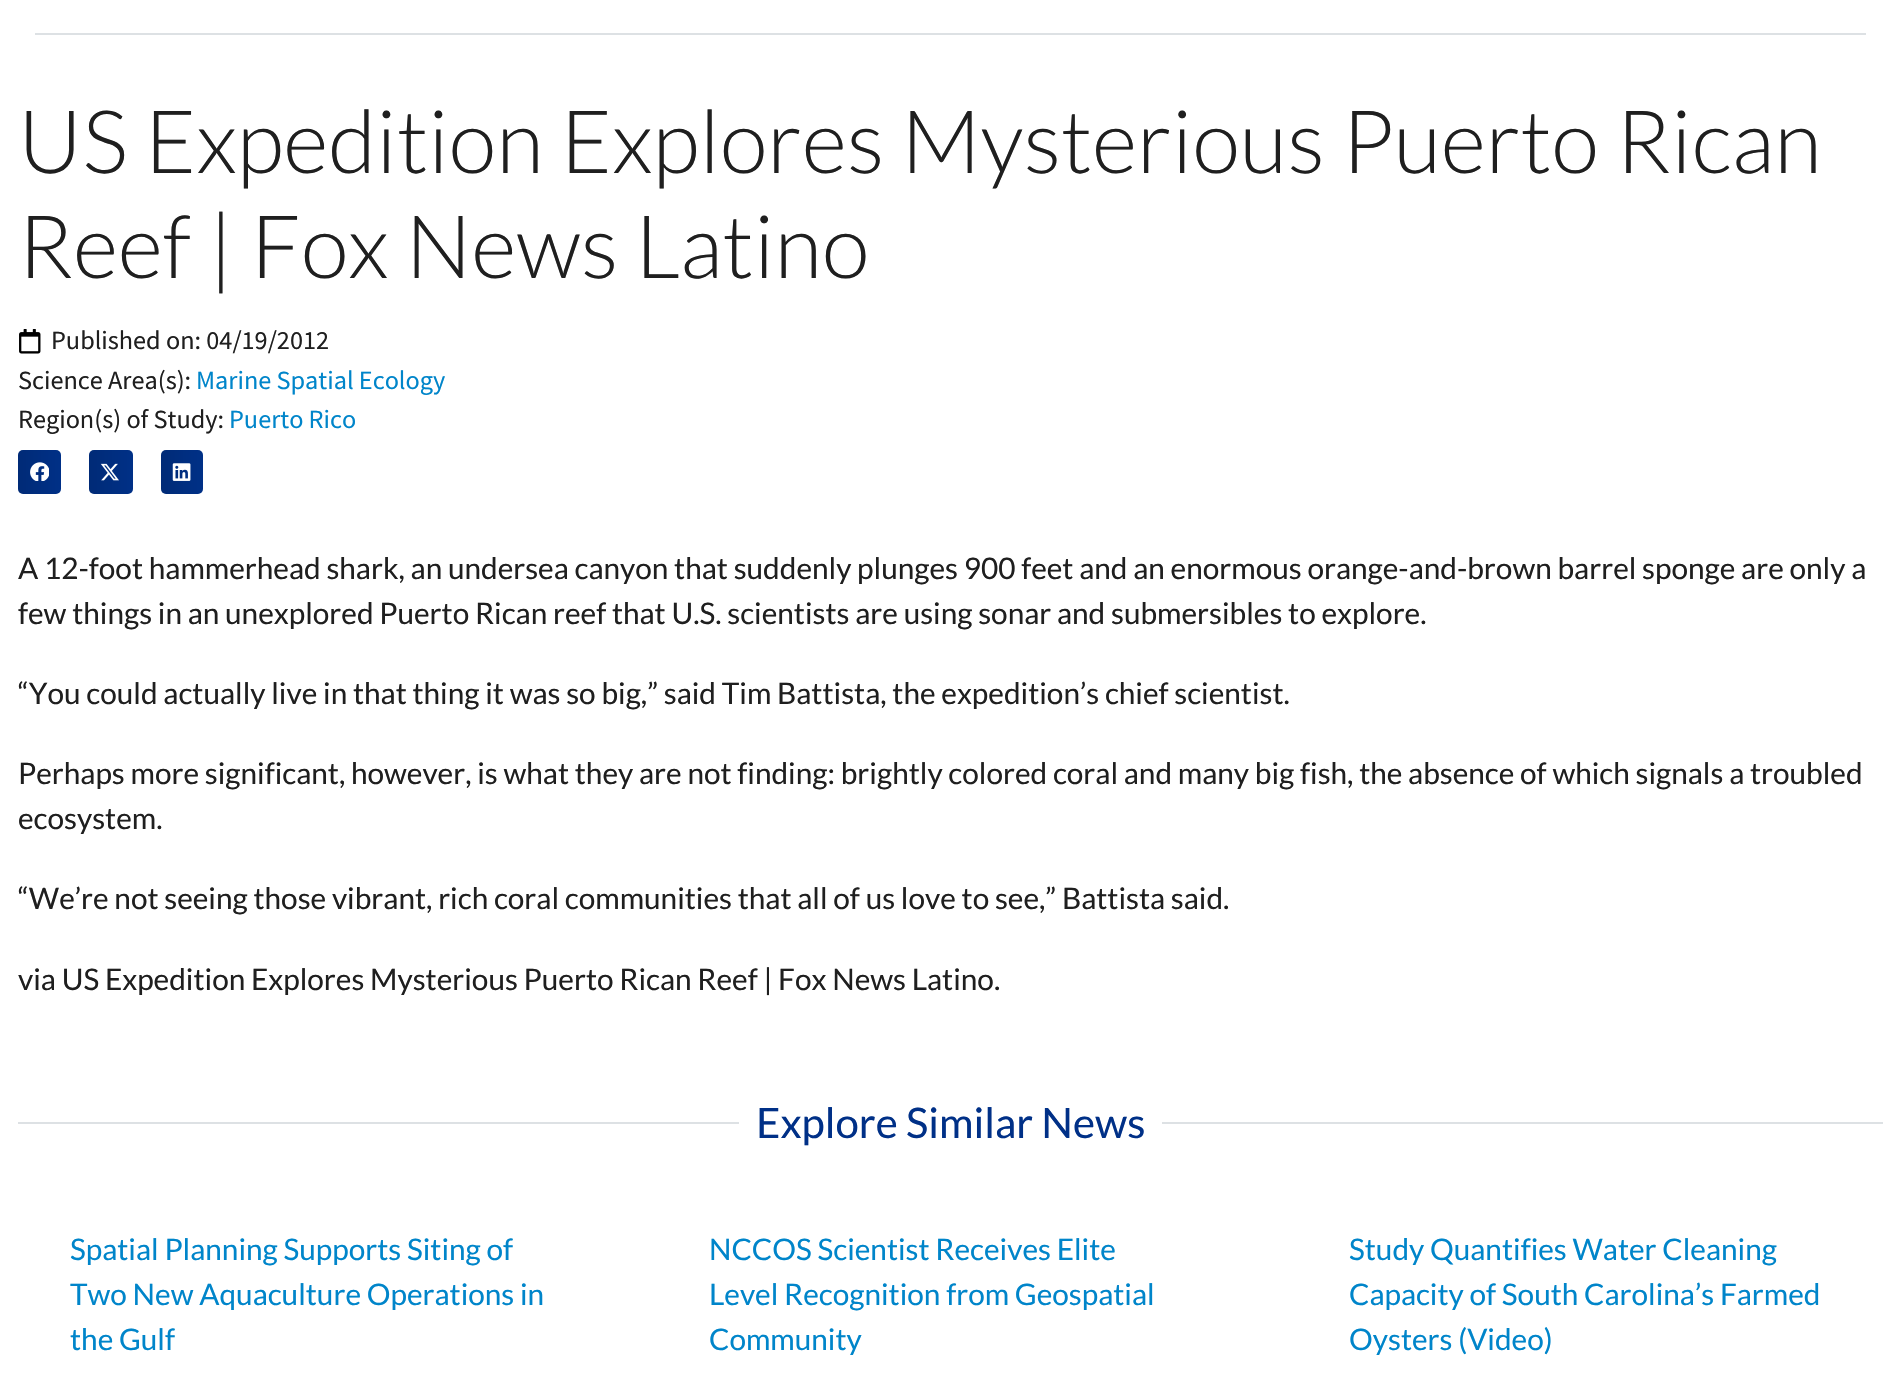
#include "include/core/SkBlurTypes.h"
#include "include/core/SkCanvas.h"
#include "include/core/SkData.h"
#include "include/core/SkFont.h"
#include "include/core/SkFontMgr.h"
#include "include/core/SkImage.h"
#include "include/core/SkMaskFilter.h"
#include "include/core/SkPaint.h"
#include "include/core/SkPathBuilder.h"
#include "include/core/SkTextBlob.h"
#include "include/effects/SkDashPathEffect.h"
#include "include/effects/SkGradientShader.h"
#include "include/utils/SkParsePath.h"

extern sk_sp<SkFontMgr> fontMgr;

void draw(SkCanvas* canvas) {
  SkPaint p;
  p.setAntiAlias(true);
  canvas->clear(SK_ColorWHITE);
  p.setColor(SkColorSetRGB(221, 225, 228));
  canvas->drawRect(SkRect::MakeLTRB(35, 33, 1866, 35), p);
  canvas->drawImageRect(SkImages::DeferredFromEncodedData(SkData::MakeFromFileName("images/1.png")), SkRect::MakeLTRB(19, 329, 41, 354), SkSamplingOptions());
  p.setColor(SkColorSetRGB(0, 48, 135));
  canvas->drawRoundRect(SkRect::MakeLTRB(18, 450, 61, 494), 5, 5, p);
  {
    const SkColor colors[] = {SkColorSetARGB(31, 0, 0, 0), SkColorSetARGB(0, 0, 0, 0)};
    const float stops[] = {0, 1};
    const SkPoint ends[] = {{18, 472}, {61, 472}};
    p.setShader(SkGradientShader::MakeLinear(ends, colors, stops, 2, SkTileMode::kClamp));
    p.setAlpha(255);
  }
  canvas->drawRoundRect(SkRect::MakeLTRB(18, 450, 61, 494), 5, 5, p);
  canvas->drawImageRect(SkImages::DeferredFromEncodedData(SkData::MakeFromFileName("images/2.png")), SkRect::MakeLTRB(30, 462, 49, 481), SkSamplingOptions());
  p.setShader(nullptr);
  p.setColor(SkColorSetRGB(0, 48, 135));
  canvas->drawRoundRect(SkRect::MakeLTRB(89, 450, 133, 494), 5, 5, p);
  {
    const SkColor colors[] = {SkColorSetARGB(31, 0, 0, 0), SkColorSetARGB(0, 0, 0, 0)};
    const float stops[] = {0, 1};
    const SkPoint ends[] = {{89, 472}, {133, 472}};
    p.setShader(SkGradientShader::MakeLinear(ends, colors, stops, 2, SkTileMode::kClamp));
    p.setAlpha(255);
  }
  canvas->drawRoundRect(SkRect::MakeLTRB(89, 450, 133, 494), 5, 5, p);
  canvas->drawImageRect(SkImages::DeferredFromEncodedData(SkData::MakeFromFileName("images/3.png")), SkRect::MakeLTRB(100, 463, 119, 481), SkSamplingOptions());
  p.setShader(nullptr);
  p.setColor(SkColorSetRGB(0, 48, 135));
  canvas->drawRoundRect(SkRect::MakeLTRB(161, 450, 203, 494), 5, 5, p);
  {
    const SkColor colors[] = {SkColorSetARGB(31, 0, 0, 0), SkColorSetARGB(0, 0, 0, 0)};
    const float stops[] = {0, 1};
    const SkPoint ends[] = {{161, 472}, {203, 472}};
    p.setShader(SkGradientShader::MakeLinear(ends, colors, stops, 2, SkTileMode::kClamp));
    p.setAlpha(255);
  }
  canvas->drawRoundRect(SkRect::MakeLTRB(161, 450, 203, 494), 5, 5, p);
  canvas->drawImageRect(SkImages::DeferredFromEncodedData(SkData::MakeFromFileName("images/4.png")), SkRect::MakeLTRB(172, 463, 191, 481), SkSamplingOptions());
  p.setShader(nullptr);
  p.setColor(SkColorSetRGB(221, 225, 228));
  canvas->drawRect(SkRect::MakeLTRB(18, 1122, 739, 1124), p);
  canvas->drawRect(SkRect::MakeLTRB(1162, 1122, 1883, 1124), p);
  SkFont font1(fontMgr->matchFamilyStyle("Lato", SkFontStyle(300, SkFontStyle::kNormal_Width, SkFontStyle::kUpright_Slant)), 87.5f);
  font1.setSubpixel(true);
  p.setColor(SkColorSetRGB(31, 31, 31));
  canvas->drawString("US Expedition Explores Mysterious Puerto Rican", 18, 173, font1, p);
  canvas->drawString("Reef | Fox News Latino", 18, 278, font1, p);
  SkFont font2(fontMgr->matchFamilyStyle("Source Sans Pro", SkFontStyle::Normal()), 26.25f);
  font2.setSubpixel(true);
  canvas->drawString("Published on: 04/19/2012", 51, 349, font2, p);
  canvas->drawString("Science Area(s):", 18, 389, font2, p);
  p.setColor(SkColorSetRGB(0, 133, 202));
  canvas->drawString("Marine Spatial Ecology", 196, 389, font2, p);
  p.setColor(SkColorSetRGB(31, 31, 31));
  canvas->drawString("Region(s) of Study:", 18, 428, font2, p);
  p.setColor(SkColorSetRGB(0, 133, 202));
  canvas->drawString("Puerto Rico", 229, 428, font2, p);
  SkFont font3(fontMgr->matchFamilyStyle("Lato", SkFontStyle::Normal()), 29.75f);
  font3.setSubpixel(true);
  p.setColor(SkColorSetRGB(31, 31, 31));
  canvas->drawString("A 12-foot hammerhead shark, an undersea canyon that suddenly plunges 900 feet and an enormous orange-and-brown barrel sponge are only a", 18, 579, font3, p);
  canvas->drawString("few things in an unexplored Puerto Rican reef that U.S. scientists are using sonar and submersibles to explore.", 18, 624, font3, p);
  canvas->drawString("“You could actually live in that thing it was so big,” said Tim Battista, the expedition’s chief scientist.", 18, 704, font3, p);
  canvas->drawString("Perhaps more significant, however, is what they are not finding: brightly colored coral and many big fish, the absence of which signals a troubled", 18, 784, font3, p);
  canvas->drawString("ecosystem.", 18, 829, font3, p);
  canvas->drawString("“We’re not seeing those vibrant, rich coral communities that all of us love to see,” Battista said.", 18, 909, font3, p);
  canvas->drawString("via US Expedition Explores Mysterious Puerto Rican Reef | Fox News Latino.", 18, 990, font3, p);
  SkFont font4(fontMgr->matchFamilyStyle("Lato", SkFontStyle::Normal()), 42);
  font4.setSubpixel(true);
  p.setColor(SkColorSetRGB(0, 48, 135));
  canvas->drawString("Explore Similar News", 756, 1138, font4, p);
  p.setColor(SkColorSetRGB(0, 133, 202));
  canvas->drawString("Spatial Planning Supports Siting of", 70, 1260, font3, p);
  canvas->drawString("Two New Aquaculture Operations in", 70, 1305, font3, p);
  canvas->drawString("the Gulf", 70, 1350, font3, p);
  canvas->drawString("NCCOS Scientist Receives Elite", 709, 1260, font3, p);
  canvas->drawString("Level Recognition from Geospatial", 709, 1305, font3, p);
  canvas->drawString("Community", 709, 1350, font3, p);
  canvas->drawString("Study Quantifies Water Cleaning", 1349, 1260, font3, p);
  canvas->drawString("Capacity of South Carolina’s Farmed", 1349, 1305, font3, p);
  canvas->drawString("Oysters (Video)", 1349, 1350, font3, p);
}
